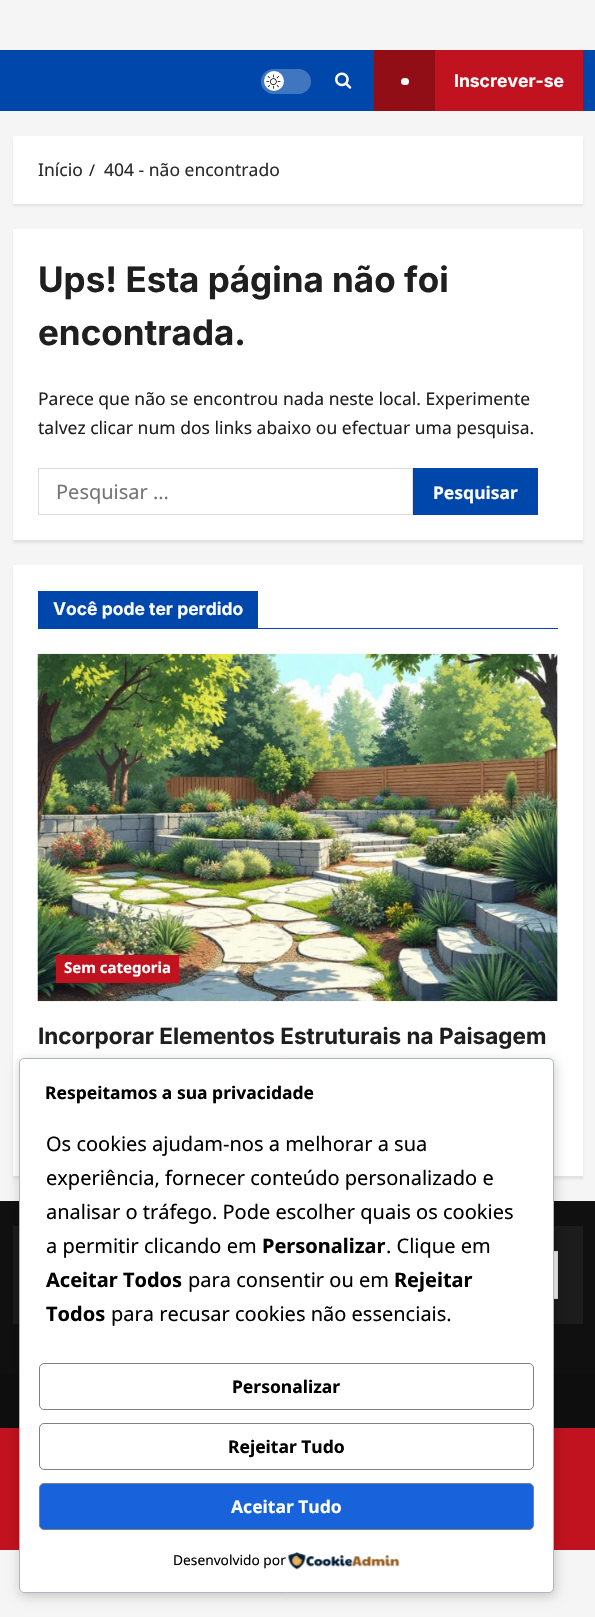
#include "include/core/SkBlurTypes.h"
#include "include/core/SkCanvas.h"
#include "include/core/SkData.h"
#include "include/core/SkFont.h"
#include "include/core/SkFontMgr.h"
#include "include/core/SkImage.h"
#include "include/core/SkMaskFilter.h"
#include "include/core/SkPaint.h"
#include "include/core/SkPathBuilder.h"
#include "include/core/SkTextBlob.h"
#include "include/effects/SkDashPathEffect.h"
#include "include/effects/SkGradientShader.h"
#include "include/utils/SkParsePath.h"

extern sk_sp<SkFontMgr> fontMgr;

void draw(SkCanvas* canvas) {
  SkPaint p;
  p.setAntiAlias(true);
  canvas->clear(SkColorSetRGB(245, 245, 245));
  p.setColor(SkColorSetRGB(0, 71, 171));
  canvas->drawRect(SkRect::MakeLTRB(0, 50, 595, 111), p);
  p.setColor(SkColorSetRGB(64, 117, 192));
  canvas->drawRoundRect(SkRect::MakeLTRB(261, 69, 311, 94), 12.5f, 12.5f, p);
  p.setColor(SK_ColorWHITE);
  canvas->drawCircle(274, 81, 10, p);
  canvas->drawImageRect(SkImages::DeferredFromEncodedData(SkData::MakeFromFileName("images/1.png")), SkRect::MakeLTRB(266, 74, 281, 89), SkSamplingOptions());
  canvas->drawImageRect(SkImages::DeferredFromEncodedData(SkData::MakeFromFileName("images/2.png")), SkRect::MakeLTRB(335, 72, 352, 89), SkSamplingOptions());
  p.setColor(SkColorSetRGB(193, 18, 31));
  canvas->drawRect(SkRect::MakeLTRB(435, 50, 583, 111), p);
  p.setColor(SkColorSetRGB(145, 14, 23));
  canvas->drawRect(SkRect::MakeLTRB(374, 50, 435, 111), p);
  p.setColor(SK_ColorWHITE);
  canvas->drawRoundRect(SkRect::MakeLTRB(401, 78, 409, 85), 3.5f, 3.5f, p);
  p.setColor(SkColorSetARGB(20, 0, 0, 0));
  p.setMaskFilter(SkMaskFilter::MakeBlur(kNormal_SkBlurStyle, 1));
  canvas->drawRect(SkRect::MakeLTRB(13, 139, 583, 206), p);
  p.setMaskFilter(nullptr);
  p.setColor(SK_ColorWHITE);
  canvas->drawRect(SkRect::MakeLTRB(13, 136, 583, 204), p);
  p.setColor(SkColorSetARGB(20, 0, 0, 0));
  p.setMaskFilter(SkMaskFilter::MakeBlur(kNormal_SkBlurStyle, 1));
  canvas->drawRect(SkRect::MakeLTRB(13, 231, 583, 543), p);
  p.setMaskFilter(nullptr);
  p.setColor(SK_ColorWHITE);
  canvas->drawRect(SkRect::MakeLTRB(13, 229, 583, 540), p);
  p.setStyle(SkPaint::kStroke_Style);
  p.setStrokeWidth(1);
  p.setColor(SkColorSetRGB(220, 220, 220));
  canvas->drawRect(SkRect::MakeLTRB(38.5f, 468.5f, 412.5f, 514.5f), p);
  p.setStyle(SkPaint::kFill_Style);
  p.setColor(SkColorSetRGB(0, 71, 171));
  canvas->drawRect(SkRect::MakeLTRB(413, 468, 538, 515), p);
  p.setColor(SkColorSetARGB(20, 0, 0, 0));
  p.setMaskFilter(SkMaskFilter::MakeBlur(kNormal_SkBlurStyle, 1));
  canvas->drawRect(SkRect::MakeLTRB(13, 568, 583, 1179), p);
  p.setMaskFilter(nullptr);
  p.setColor(SK_ColorWHITE);
  canvas->drawRect(SkRect::MakeLTRB(13, 565, 583, 1176), p);
  p.setColor(SkColorSetRGB(0, 71, 171));
  canvas->drawRect(SkRect::MakeLTRB(38, 628, 558, 629), p);
  canvas->drawRect(SkRect::MakeLTRB(38, 591, 258, 628), p);
  p.setColor(SkColorSetRGB(236, 236, 236));
  canvas->drawRect(SkRect::MakeLTRB(557, 654, 558, 1001), p);
  canvas->drawImageRect(SkImages::DeferredFromEncodedData(SkData::MakeFromFileName("images/3.png")), SkRect::MakeLTRB(37, 653, 558, 1002), SkSamplingOptions());
  p.setColor(SkColorSetRGB(193, 18, 31));
  canvas->drawRect(SkRect::MakeLTRB(56, 955, 179, 983), p);
  p.setColor(SkColorSetRGB(16, 16, 16));
  canvas->drawRect(SkRect::MakeLTRB(0, 1201, 595, 1374), p);
  p.setColor(SkColorSetRGB(28, 28, 28));
  canvas->drawRect(SkRect::MakeLTRB(13, 1226, 583, 1324), p);
  p.setColor(SkColorSetRGB(239, 239, 239));
  canvas->drawRect(SkRect::MakeLTRB(554, 1252, 557, 1298), p);
  p.setStyle(SkPaint::kStroke_Style);
  p.setColor(SkColorSetRGB(220, 220, 220));
  canvas->drawRect(SkRect::MakeLTRB(38.5f, 1251.5f, 557.5f, 1298.5f), p);
  p.setStyle(SkPaint::kFill_Style);
  p.setColor(SkColorSetRGB(14, 14, 14));
  canvas->drawRect(SkRect::MakeLTRB(0, 1374, 595, 1428), p);
  p.setColor(SkColorSetRGB(193, 18, 31));
  canvas->drawRect(SkRect::MakeLTRB(0, 1428, 595, 1550), p);
  p.setColor(SkColorSetARGB(51, 0, 0, 0));
  p.setMaskFilter(SkMaskFilter::MakeBlur(kNormal_SkBlurStyle, 6));
  canvas->drawRoundRect(SkRect::MakeLTRB(20, 1061, 555, 1596), 5, 5, p);
  p.setMaskFilter(nullptr);
  p.setColor(SK_ColorWHITE);
  canvas->drawRoundRect(SkRect::MakeLTRB(19.5f, 1058.5f, 553.5f, 1592.5f), 4.5f, 4.5f, p);
  p.setStyle(SkPaint::kStroke_Style);
  p.setColor(SkColorSetRGB(171, 184, 195));
  canvas->drawRoundRect(SkRect::MakeLTRB(19.5f, 1058.5f, 553.5f, 1592.5f), 4.5f, 4.5f, p);
  p.setColor(SkColorSetRGB(128, 128, 128));
  canvas->drawRoundRect(SkRect::MakeLTRB(39.5f, 1363.5f, 533.5f, 1409.5f), 4.5f, 4.5f, p);
  canvas->drawRoundRect(SkRect::MakeLTRB(39.5f, 1423.5f, 533.5f, 1469.5f), 4.5f, 4.5f, p);
  p.setStyle(SkPaint::kFill_Style);
  p.setColor(SkColorSetRGB(24, 99, 220));
  canvas->drawRoundRect(SkRect::MakeLTRB(39.5f, 1483.5f, 533.5f, 1529.5f), 4.5f, 4.5f, p);
  p.setStyle(SkPaint::kStroke_Style);
  p.setColor(SkColorSetRGB(128, 128, 128));
  canvas->drawRoundRect(SkRect::MakeLTRB(39.5f, 1483.5f, 533.5f, 1529.5f), 4.5f, 4.5f, p);
  canvas->drawImageRect(SkImages::DeferredFromEncodedData(SkData::MakeFromFileName("images/4.png")), SkRect::MakeLTRB(288, 1552, 400, 1570), SkSamplingOptions());
  SkFont font1(fontMgr->matchFamilyStyle("Inter", SkFontStyle::Bold()), 17.5f);
  font1.setSubpixel(true);
  p.setStyle(SkPaint::kFill_Style);
  p.setColor(SK_ColorWHITE);
  canvas->drawString("Inscrever-se", 454, 87, font1, p);
  SkFont font2(fontMgr->matchFamilyStyle("Noto Sans", SkFontStyle::Normal()), 17.5f);
  font2.setSubpixel(true);
  p.setColor(SkColorSetRGB(42, 42, 42));
  canvas->drawString("Início", 38, 176, font2, p);
  SkFont font3(fontMgr->matchFamilyStyle("Noto Sans", SkFontStyle::Normal()), 16);
  font3.setSubpixel(true);
  p.setColor(SkColorSetRGB(31, 31, 31));
  canvas->drawString("/", 89, 176, font3, p);
  p.setColor(SkColorSetRGB(42, 42, 42));
  canvas->drawString("404 - não encontrado", 104, 176, font2, p);
  SkFont font4(fontMgr->matchFamilyStyle("Inter", SkFontStyle::Bold()), 35);
  font4.setSubpixel(true);
  p.setColor(SkColorSetRGB(31, 31, 31));
  canvas->drawString("Ups! Esta página não foi", 38, 292, font4, p);
  canvas->drawString("encontrada.", 38, 345, font4, p);
  canvas->drawString("Parece que não se encontrou nada neste local. Experimente", 38, 405, font2, p);
  canvas->drawString("talvez clicar num dos links abaixo ou efectuar uma pesquisa.", 38, 434, font2, p);
  SkFont font5(fontMgr->matchFamilyStyle("Noto Sans", SkFontStyle::Normal()), 20);
  font5.setSubpixel(true);
  p.setColor(SkColorSetRGB(117, 117, 117));
  canvas->drawString("Pesquisar …", 56, 499, font5, p);
  SkFont font6(fontMgr->matchFamilyStyle("Noto Sans", SkFontStyle::Bold()), 17.5f);
  font6.setSubpixel(true);
  p.setColor(SK_ColorWHITE);
  canvas->drawString("Pesquisar", 433, 499, font6, p);
  canvas->drawString("Você pode ter perdido", 53, 615, font1, p);
  SkFont font7(fontMgr->matchFamilyStyle("Noto Sans", SkFontStyle::Bold()), 15);
  font7.setSubpixel(true);
  canvas->drawString("Sem categoria", 64, 973, font7, p);
  SkFont font8(fontMgr->matchFamilyStyle("Inter", SkFontStyle::Bold()), 22.5f);
  font8.setSubpixel(true);
  p.setColor(SkColorSetRGB(31, 31, 31));
  canvas->drawString("Incorporar Elementos Estruturais na Paisagem", 38, 1044, font8, p);
  p.setColor(SK_ColorBLACK);
  canvas->drawString("Respeitamos a sua privacidade", 45, 1099, font6, p);
  canvas->drawString("Os cookies ajudam-nos a melhorar a sua", 46, 1151, font5, p);
  canvas->drawString("experiência, fornecer conteúdo personalizado e", 46, 1185, font5, p);
  canvas->drawString("analisar o tráfego. Pode escolher quais os cookies", 46, 1219, font5, p);
  canvas->drawString("a permitir clicando em", 46, 1253, font5, p);
  SkFont font9(fontMgr->matchFamilyStyle("Noto Sans", SkFontStyle::Bold()), 20);
  font9.setSubpixel(true);
  canvas->drawString("Personalizar", 262, 1253, font9, p);
  canvas->drawString(". Clique em", 386, 1253, font5, p);
  canvas->drawString("Aceitar Todos", 46, 1287, font9, p);
  canvas->drawString("para consentir ou em", 188, 1287, font5, p);
  canvas->drawString("Rejeitar", 394, 1287, font9, p);
  canvas->drawString("Todos", 46, 1321, font9, p);
  canvas->drawString("para recusar cookies não essenciais.", 111, 1321, font5, p);
  canvas->drawString("Personalizar", 232, 1393, font6, p);
  canvas->drawString("Rejeitar Tudo", 228, 1453, font6, p);
  p.setColor(SK_ColorWHITE);
  canvas->drawString("Aceitar Tudo", 231, 1513, font6, p);
  SkFont font10(fontMgr->matchFamilyStyle("Noto Sans", SkFontStyle::Normal()), 13.75f);
  font10.setSubpixel(true);
  p.setColor(SK_ColorBLACK);
  canvas->drawString("Desenvolvido por", 173, 1565, font10, p);
}
